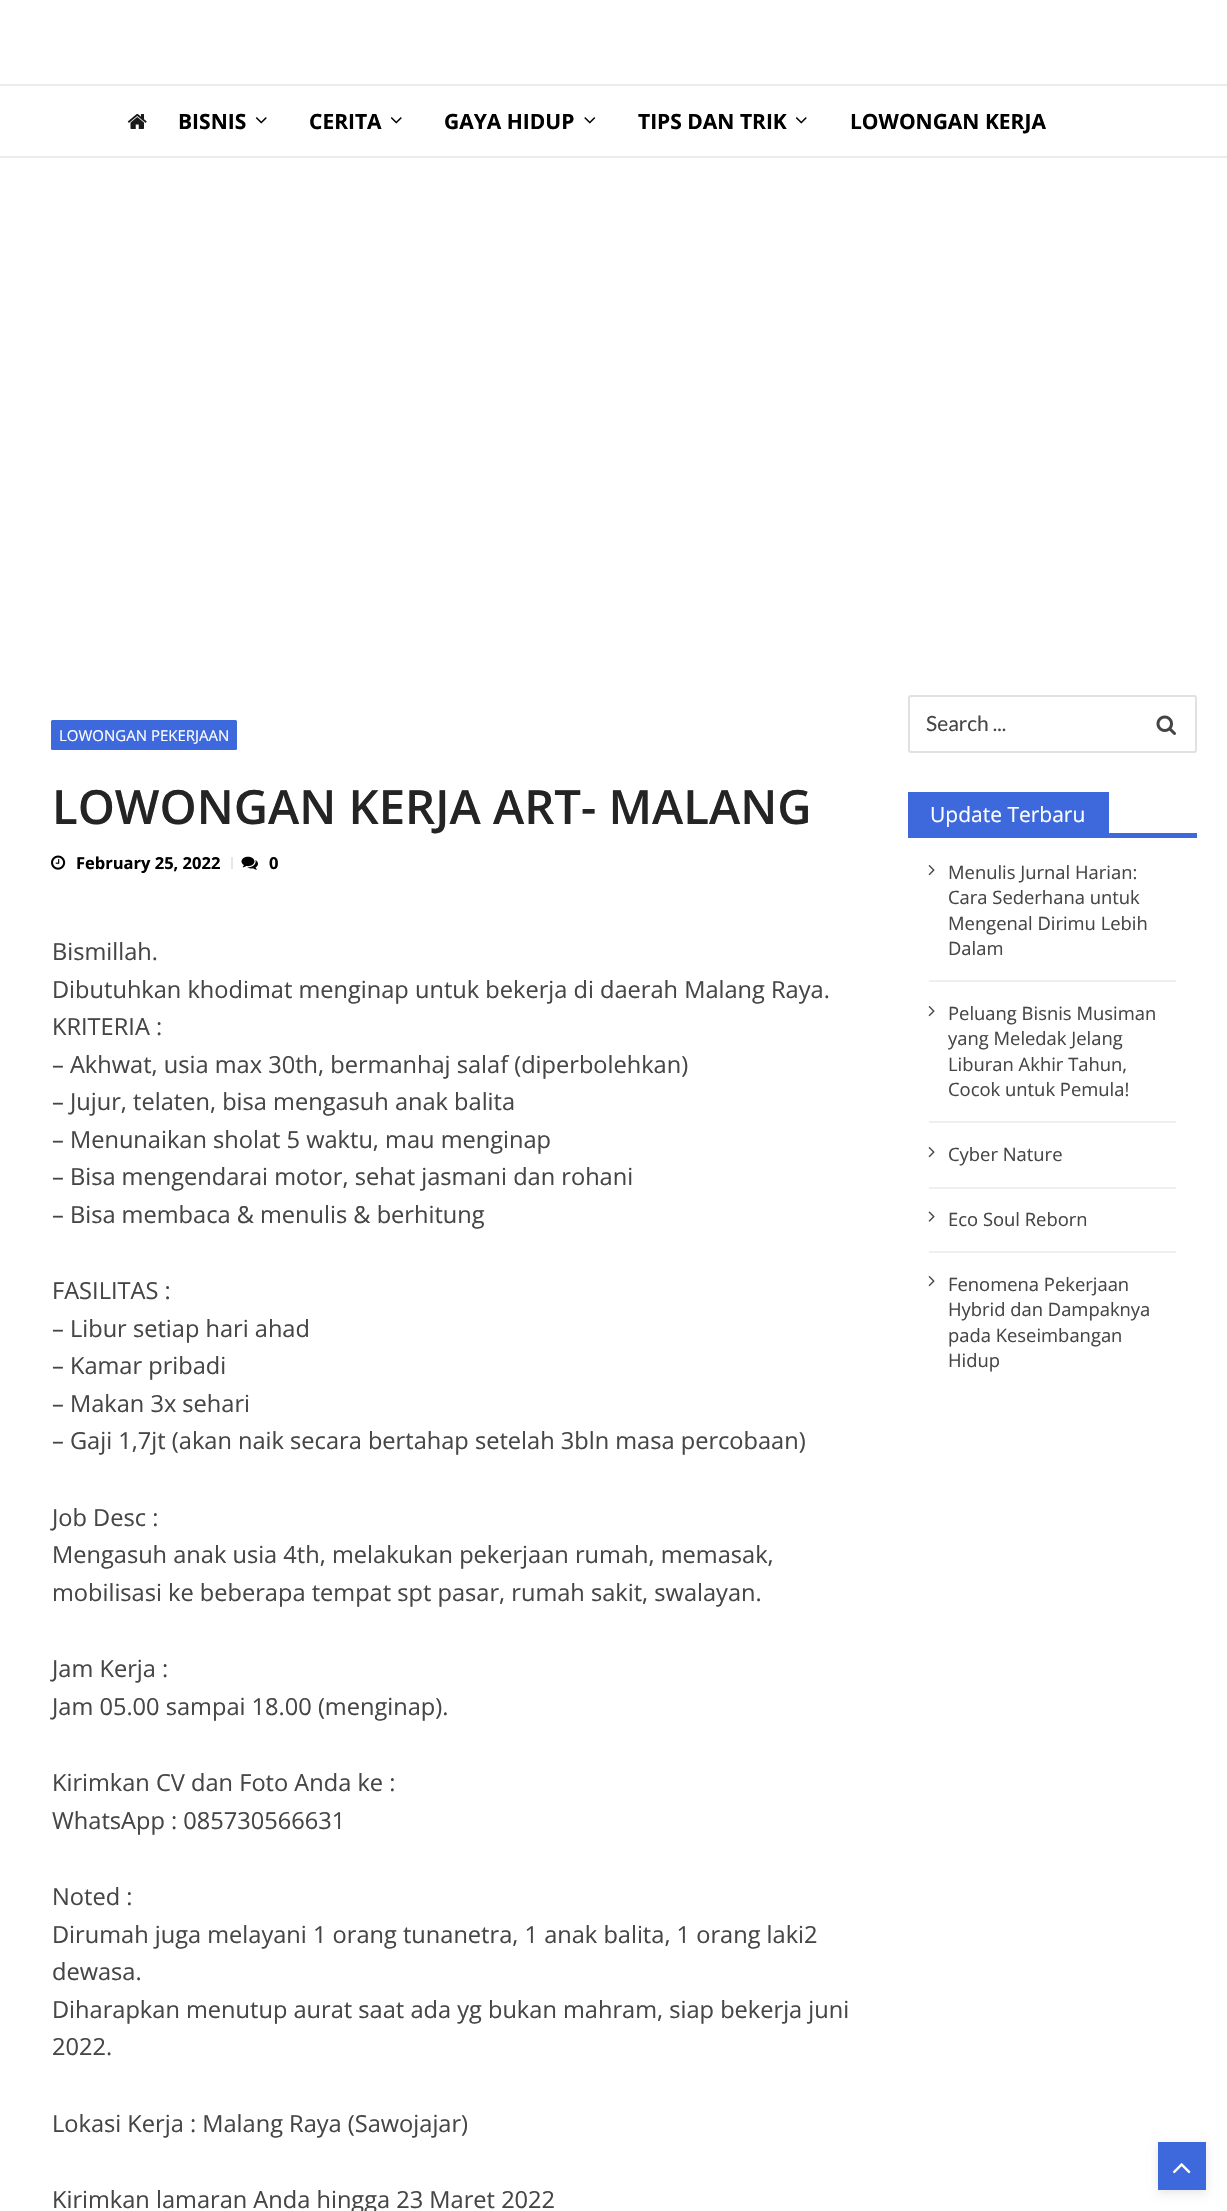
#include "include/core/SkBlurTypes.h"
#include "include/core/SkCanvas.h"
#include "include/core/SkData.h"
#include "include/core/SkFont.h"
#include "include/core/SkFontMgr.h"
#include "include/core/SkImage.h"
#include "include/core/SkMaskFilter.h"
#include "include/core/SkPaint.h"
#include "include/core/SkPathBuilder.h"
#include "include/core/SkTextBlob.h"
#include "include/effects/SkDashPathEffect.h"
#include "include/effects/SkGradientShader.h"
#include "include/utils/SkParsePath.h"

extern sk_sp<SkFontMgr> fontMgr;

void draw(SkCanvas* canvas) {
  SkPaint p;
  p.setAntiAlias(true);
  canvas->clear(SK_ColorWHITE);
  p.setColor(SkColorSetRGB(236, 236, 236));
  canvas->drawRect(SkRect::MakeLTRB(0, 84, 1227, 86), p);
  canvas->drawRect(SkRect::MakeLTRB(0, 156, 1227, 158), p);
  canvas->drawImageRect(SkImages::DeferredFromEncodedData(SkData::MakeFromFileName("images/1.png")), SkRect::MakeLTRB(127, 114, 147, 129), SkSamplingOptions());
  canvas->drawImageRect(SkImages::DeferredFromEncodedData(SkData::MakeFromFileName("images/2.png")), SkRect::MakeLTRB(255, 117, 267, 124), SkSamplingOptions());
  canvas->drawImageRect(SkImages::DeferredFromEncodedData(SkData::MakeFromFileName("images/2.png")), SkRect::MakeLTRB(390, 117, 402, 124), SkSamplingOptions());
  canvas->drawImageRect(SkImages::DeferredFromEncodedData(SkData::MakeFromFileName("images/3.png")), SkRect::MakeLTRB(584, 117, 596, 124), SkSamplingOptions());
  canvas->drawImageRect(SkImages::DeferredFromEncodedData(SkData::MakeFromFileName("images/2.png")), SkRect::MakeLTRB(795, 117, 807, 124), SkSamplingOptions());
  p.setColor(SkColorSetRGB(62, 105, 220));
  canvas->drawRoundRect(SkRect::MakeLTRB(51, 720, 237, 750), 1.5f, 1.5f, p);
  canvas->drawImageRect(SkImages::DeferredFromEncodedData(SkData::MakeFromFileName("images/4.png")), SkRect::MakeLTRB(51, 855, 66, 870), SkSamplingOptions());
  p.setColor(SkColorSetRGB(230, 230, 230));
  canvas->drawRect(SkRect::MakeLTRB(231, 857, 233, 869), p);
  canvas->drawImageRect(SkImages::DeferredFromEncodedData(SkData::MakeFromFileName("images/5.png")), SkRect::MakeLTRB(241, 856, 258, 870), SkSamplingOptions());
  p.setStyle(SkPaint::kStroke_Style);
  p.setStrokeWidth(2);
  p.setColor(SkColorSetRGB(225, 225, 225));
  canvas->drawRoundRect(SkRect::MakeLTRB(909, 696, 1196, 752), 2, 2, p);
  canvas->drawImageRect(SkImages::DeferredFromEncodedData(SkData::MakeFromFileName("images/6.png")), SkRect::MakeLTRB(1156, 715, 1176, 735), SkSamplingOptions());
  p.setStyle(SkPaint::kFill_Style);
  p.setColor(SkColorSetRGB(62, 105, 220));
  canvas->drawRect(SkRect::MakeLTRB(908, 792, 1109, 833), p);
  canvas->drawRect(SkRect::MakeLTRB(908, 833, 1197, 838), p);
  p.setColor(SkColorSetRGB(239, 239, 239));
  canvas->drawRect(SkRect::MakeLTRB(929, 980, 1176, 982), p);
  canvas->drawImageRect(SkImages::DeferredFromEncodedData(SkData::MakeFromFileName("images/7.png")), SkRect::MakeLTRB(928, 865, 935, 876), SkSamplingOptions());
  canvas->drawRect(SkRect::MakeLTRB(929, 1121, 1176, 1123), p);
  canvas->drawImageRect(SkImages::DeferredFromEncodedData(SkData::MakeFromFileName("images/7.png")), SkRect::MakeLTRB(928, 1006, 935, 1017), SkSamplingOptions());
  canvas->drawRect(SkRect::MakeLTRB(929, 1187, 1176, 1189), p);
  canvas->drawImageRect(SkImages::DeferredFromEncodedData(SkData::MakeFromFileName("images/7.png")), SkRect::MakeLTRB(928, 1147, 935, 1158), SkSamplingOptions());
  canvas->drawRect(SkRect::MakeLTRB(929, 1251, 1176, 1253), p);
  canvas->drawImageRect(SkImages::DeferredFromEncodedData(SkData::MakeFromFileName("images/8.png")), SkRect::MakeLTRB(928, 1211, 935, 1222), SkSamplingOptions());
  canvas->drawImageRect(SkImages::DeferredFromEncodedData(SkData::MakeFromFileName("images/7.png")), SkRect::MakeLTRB(928, 1276, 935, 1287), SkSamplingOptions());
  p.setColor(SkColorSetARGB(26, 0, 0, 0));
  p.setMaskFilter(SkMaskFilter::MakeBlur(kNormal_SkBlurStyle, 4.5f));
  canvas->drawRect(SkRect::MakeLTRB(1158, 2145, 1206, 2193), p);
  p.setMaskFilter(nullptr);
  p.setColor(SkColorSetRGB(62, 105, 220));
  canvas->drawRect(SkRect::MakeLTRB(1158, 2142, 1206, 2190), p);
  canvas->drawImageRect(SkImages::DeferredFromEncodedData(SkData::MakeFromFileName("images/9.png")), SkRect::MakeLTRB(1172, 2163, 1191, 2174), SkSamplingOptions());
  SkFont font1(fontMgr->matchFamilyStyle("Open Sans", SkFontStyle::Bold()), 21);
  font1.setSubpixel(true);
  p.setColor(SK_ColorBLACK);
  canvas->drawString("BISNIS", 178, 129, font1, p);
  canvas->drawString("CERITA", 309, 129, font1, p);
  canvas->drawString("GAYA HIDUP", 444, 129, font1, p);
  canvas->drawString("TIPS DAN TRIK", 638, 129, font1, p);
  canvas->drawString("LOWONGAN KERJA", 850, 129, font1, p);
  SkFont font2(fontMgr->matchFamilyStyle("Open Sans", SkFontStyle::Normal()), 15);
  font2.setSubpixel(true);
  p.setColor(SK_ColorWHITE);
  canvas->drawString("LOWONGAN PEKERJAAN", 59, 741, font2, p);
  SkFont font3(fontMgr->matchFamilyStyle("Open Sans", SkFontStyle(600, SkFontStyle::kNormal_Width, SkFontStyle::kUpright_Slant)), 47.25f);
  font3.setSubpixel(true);
  p.setColor(SkColorSetRGB(36, 36, 36));
  canvas->drawString("LOWONGAN KERJA ART- MALANG", 52, 824, font3, p);
  SkFont font4(fontMgr->matchFamilyStyle("Open Sans", SkFontStyle::Bold()), 16.5f);
  font4.setSubpixel(true);
  p.setColor(SK_ColorBLACK);
  canvas->drawString("February 25, 2022", 76, 869, font4, p);
  canvas->drawString("0", 269, 869, font4, p);
  SkFont font5(fontMgr->matchFamilyStyle("Open Sans", SkFontStyle::Normal()), 23.6f);
  font5.setSubpixel(true);
  p.setColor(SkColorSetRGB(70, 70, 70));
  canvas->drawString("Bismillah.", 52, 960, font5, p);
  canvas->drawString("Dibutuhkan khodimat menginap untuk bekerja di daerah Malang Raya.", 52, 998, font5, p);
  canvas->drawString("KRITERIA :", 52, 1035, font5, p);
  canvas->drawString("– Akhwat, usia max 30th, bermanhaj salaf (diperbolehkan)", 52, 1073, font5, p);
  canvas->drawString("– Jujur, telaten, bisa mengasuh anak balita", 52, 1110, font5, p);
  canvas->drawString("– Menunaikan sholat 5 waktu, mau menginap", 52, 1148, font5, p);
  canvas->drawString("– Bisa mengendarai motor, sehat jasmani dan rohani", 52, 1185, font5, p);
  canvas->drawString("– Bisa membaca & menulis & berhitung", 52, 1223, font5, p);
  canvas->drawString("FASILITAS :", 52, 1299, font5, p);
  canvas->drawString("– Libur setiap hari ahad", 52, 1337, font5, p);
  canvas->drawString("– Kamar pribadi", 52, 1374, font5, p);
  canvas->drawString("– Makan 3x sehari", 52, 1412, font5, p);
  canvas->drawString("– Gaji 1,7jt (akan naik secara bertahap setelah 3bln masa percobaan)", 52, 1449, font5, p);
  canvas->drawString("Job Desc :", 52, 1526, font5, p);
  canvas->drawString("Mengasuh anak usia 4th, melakukan pekerjaan rumah, memasak,", 52, 1563, font5, p);
  canvas->drawString("mobilisasi ke beberapa tempat spt pasar, rumah sakit, swalayan.", 52, 1601, font5, p);
  canvas->drawString("Jam Kerja :", 52, 1677, font5, p);
  canvas->drawString("Jam 05.00 sampai 18.00 (menginap).", 52, 1715, font5, p);
  canvas->drawString("Kirimkan CV dan Foto Anda ke :", 52, 1791, font5, p);
  canvas->drawString("WhatsApp : 085730566631", 52, 1829, font5, p);
  canvas->drawString("Noted :", 52, 1905, font5, p);
  canvas->drawString("Dirumah juga melayani 1 orang tunanetra, 1 anak balita, 1 orang laki2", 52, 1943, font5, p);
  canvas->drawString("dewasa.", 52, 1980, font5, p);
  canvas->drawString("Diharapkan menutup aurat saat ada yg bukan mahram, siap bekerja juni", 52, 2018, font5, p);
  canvas->drawString("2022.", 52, 2055, font5, p);
  canvas->drawString("Lokasi Kerja : Malang Raya (Sawojajar)", 52, 2132, font5, p);
  canvas->drawString("Kirimkan lamaran Anda hingga 23 Maret 2022", 52, 2208, font5, p);
  SkFont font6(fontMgr->matchFamilyStyle("Lato", SkFontStyle::Normal()), 21);
  font6.setSubpixel(true);
  canvas->drawString("Search ...", 926, 731, font6, p);
  SkFont font7(fontMgr->matchFamilyStyle("Open Sans", SkFontStyle::Normal()), 21);
  font7.setSubpixel(true);
  p.setColor(SK_ColorWHITE);
  canvas->drawString("Update Terbaru", 930, 822, font7, p);
  SkFont font8(fontMgr->matchFamilyStyle("Open Sans", SkFontStyle::Normal()), 18.4f);
  font8.setSubpixel(true);
  p.setColor(SkColorSetRGB(70, 70, 70));
  canvas->drawString("Menulis Jurnal Harian:", 948, 879, font8, p);
  canvas->drawString("Cara Sederhana untuk", 948, 904, font8, p);
  canvas->drawString("Mengenal Dirimu Lebih", 948, 930, font8, p);
  canvas->drawString("Dalam", 948, 955, font8, p);
  canvas->drawString("Peluang Bisnis Musiman", 948, 1020, font8, p);
  canvas->drawString("yang Meledak Jelang", 948, 1045, font8, p);
  canvas->drawString("Liburan Akhir Tahun,", 948, 1071, font8, p);
  canvas->drawString("Cocok untuk Pemula!", 948, 1096, font8, p);
  canvas->drawString("Cyber Nature", 948, 1161, font8, p);
  canvas->drawString("Eco Soul Reborn", 948, 1226, font8, p);
  canvas->drawString("Fenomena Pekerjaan", 948, 1291, font8, p);
  canvas->drawString("Hybrid dan Dampaknya", 948, 1316, font8, p);
  canvas->drawString("pada Keseimbangan", 948, 1342, font8, p);
  canvas->drawString("Hidup", 948, 1367, font8, p);
}
